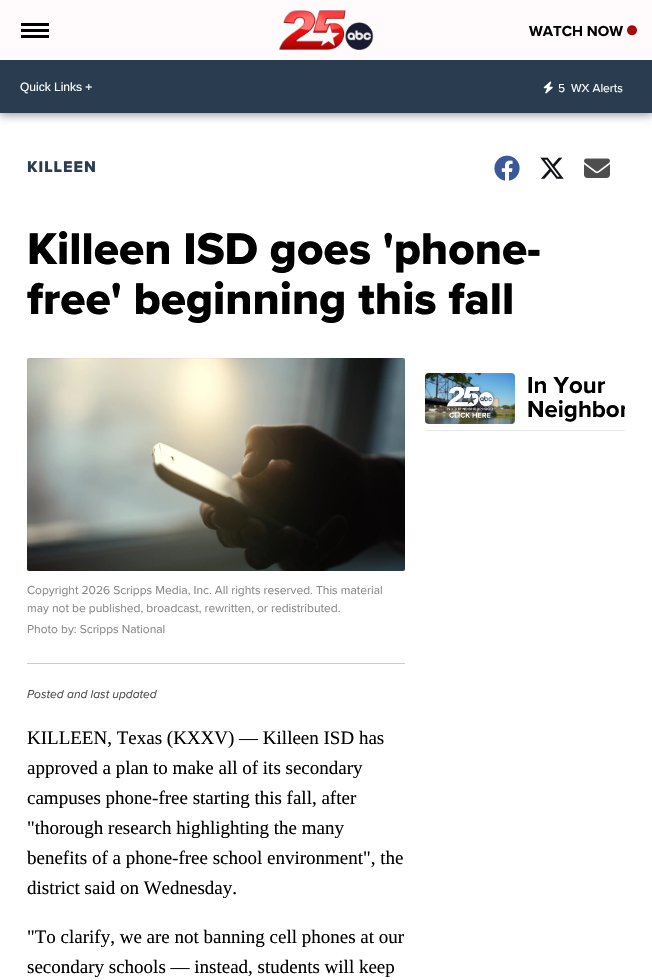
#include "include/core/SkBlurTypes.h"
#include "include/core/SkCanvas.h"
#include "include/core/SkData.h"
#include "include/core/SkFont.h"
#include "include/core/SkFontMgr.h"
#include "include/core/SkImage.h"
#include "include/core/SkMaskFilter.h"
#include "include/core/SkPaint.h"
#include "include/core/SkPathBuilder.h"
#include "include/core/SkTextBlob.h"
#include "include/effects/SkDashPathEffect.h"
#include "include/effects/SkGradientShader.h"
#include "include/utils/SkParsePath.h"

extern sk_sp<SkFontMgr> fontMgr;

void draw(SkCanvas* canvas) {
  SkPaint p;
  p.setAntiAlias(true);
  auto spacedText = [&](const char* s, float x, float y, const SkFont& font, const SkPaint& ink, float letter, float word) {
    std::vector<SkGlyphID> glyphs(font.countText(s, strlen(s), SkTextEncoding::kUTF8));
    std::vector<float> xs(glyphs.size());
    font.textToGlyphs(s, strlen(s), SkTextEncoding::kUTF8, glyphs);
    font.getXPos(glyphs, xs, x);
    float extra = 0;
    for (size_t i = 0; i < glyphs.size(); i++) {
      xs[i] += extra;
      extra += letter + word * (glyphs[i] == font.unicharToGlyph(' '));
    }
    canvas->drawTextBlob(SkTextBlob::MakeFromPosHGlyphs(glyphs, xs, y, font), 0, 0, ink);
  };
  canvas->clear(SK_ColorWHITE);
  p.setColor(SkColorSetARGB(194, 97, 97, 97));
  p.setMaskFilter(SkMaskFilter::MakeBlur(kNormal_SkBlurStyle, 5));
  canvas->drawRect(SkRect::MakeLTRB(-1, -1, 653, 114), p);
  p.setMaskFilter(nullptr);
  p.setColor(SkColorSetRGB(255, 251, 253));
  canvas->drawRect(SkRect::MakeLTRB(0, 0, 652, 60), p);
  p.setColor(SK_ColorBLACK);
  canvas->drawRect(SkRect::MakeLTRB(21, 23, 49, 26), p);
  canvas->drawRect(SkRect::MakeLTRB(21, 29, 49, 32), p);
  canvas->drawRect(SkRect::MakeLTRB(21, 35, 49, 38), p);
  canvas->drawImageRect(SkImages::DeferredFromEncodedData(SkData::MakeFromFileName("images/1.png")), SkRect::MakeLTRB(279, 10, 374, 50), SkSamplingOptions());
  canvas->drawImageRect(SkImages::DeferredFromEncodedData(SkData::MakeFromFileName("images/2.png")), SkRect::MakeLTRB(627, 25, 637, 36), SkSamplingOptions());
  p.setColor(SkColorSetRGB(42, 60, 79));
  canvas->drawRect(SkRect::MakeLTRB(0, 60, 652, 113), p);
  canvas->drawImageRect(SkImages::DeferredFromEncodedData(SkData::MakeFromFileName("images/3.png")), SkRect::MakeLTRB(543, 81, 553, 94), SkSamplingOptions());
  p.setColor(SK_ColorWHITE);
  canvas->drawRect(SkRect::MakeLTRB(7, 123, 645, 124), p);
  canvas->drawImageRect(SkImages::DeferredFromEncodedData(SkData::MakeFromFileName("images/4.png")), SkRect::MakeLTRB(494, 155, 520, 181), SkSamplingOptions());
  canvas->drawImageRect(SkImages::DeferredFromEncodedData(SkData::MakeFromFileName("images/5.png")), SkRect::MakeLTRB(540, 157, 564, 179), SkSamplingOptions());
  canvas->drawImageRect(SkImages::DeferredFromEncodedData(SkData::MakeFromFileName("images/6.png")), SkRect::MakeLTRB(584, 158, 610, 178), SkSamplingOptions());
  p.setColor(SkColorSetRGB(231, 231, 231));
  canvas->drawRect(SkRect::MakeLTRB(425, 430, 625, 431), p);
  canvas->drawImageRect(SkImages::DeferredFromEncodedData(SkData::MakeFromFileName("images/7.png")), SkRect::MakeLTRB(425, 373, 515, 424), SkSamplingOptions());
  p.setColor(SkColorSetRGB(204, 204, 204));
  canvas->drawRect(SkRect::MakeLTRB(27, 663, 405, 664), p);
  canvas->drawImageRect(SkImages::DeferredFromEncodedData(SkData::MakeFromFileName("images/8.png")), SkRect::MakeLTRB(27, 358, 405, 571), SkSamplingOptions());
  SkFont font1(fontMgr->matchFamilyStyle("Proxima Nova", SkFontStyle::Bold()), 15);
  font1.setSubpixel(true);
  p.setColor(SK_ColorBLACK);
  canvas->drawString("WATCH NOW", 529, 36, font1, p);
  SkFont font2(fontMgr->matchFamilyStyle("Liberation Sans", SkFontStyle::Normal()), 12);
  font2.setSubpixel(true);
  p.setColor(SK_ColorWHITE);
  canvas->drawString("Quick Links +", 20, 91, font2, p);
  SkFont font3(fontMgr->matchFamilyStyle("Proxima Nova", SkFontStyle::Normal()), 12);
  font3.setSubpixel(true);
  canvas->drawString("5", 558, 92, font3, p);
  canvas->drawString("WX Alerts", 571, 92, font3, p);
  SkFont font4(fontMgr->matchFamilyStyle("Proxima Nova", SkFontStyle(800, SkFontStyle::kNormal_Width, SkFontStyle::kUpright_Slant)), 16);
  font4.setSubpixel(true);
  p.setColor(SkColorSetRGB(42, 60, 79));
  spacedText("KILLEEN", 27, 172, font4, p, 1, 0);
  SkFont font5(fontMgr->matchFamilyStyle("Proxima Nova", SkFontStyle(800, SkFontStyle::kNormal_Width, SkFontStyle::kUpright_Slant)), 46);
  font5.setSubpixel(true);
  p.setColor(SK_ColorBLACK);
  canvas->drawString("Killeen ISD goes 'phone-", 27, 264, font5, p);
  canvas->drawString("free' beginning this fall", 27, 314, font5, p);
  SkFont font6(fontMgr->matchFamilyStyle("Proxima Nova", SkFontStyle::Bold()), 24);
  font6.setSubpixel(true);
  canvas->drawString("In Your", 527, 393, font6, p);
  canvas->save();
  canvas->clipRect(SkRect::MakeLTRB(425, 373, 625, 430));
  canvas->drawString("Neighbor", 527, 417, font6, p);
  canvas->restore();
  p.setColor(SkColorSetRGB(136, 136, 136));
  canvas->drawString("Copyright 2026 Scripps Media, Inc. All rights reserved. This material", 27, 594, font3, p);
  canvas->drawString("may not be published, broadcast, rewritten, or redistributed.", 27, 612, font3, p);
  canvas->drawString("Photo by: Scripps National", 27, 633, font3, p);
  SkFont font7(fontMgr->matchFamilyStyle("Proxima Nova", SkFontStyle::Italic()), 12);
  font7.setSubpixel(true);
  p.setColor(SkColorSetRGB(77, 77, 77));
  canvas->drawString("Posted", 27, 698, font7, p);
  canvas->drawString("and last updated", 67, 698, font7, p);
  SkFont font8(fontMgr->matchFamilyStyle("Liberation Serif", SkFontStyle::Normal()), 19);
  font8.setSubpixel(true);
  p.setColor(SK_ColorBLACK);
  canvas->drawString("KILLEEN, Texas (KXXV) — Killeen ISD has", 27, 744, font8, p);
  canvas->drawString("approved a plan to make all of its secondary", 27, 774, font8, p);
  canvas->drawString("campuses phone-free starting this fall, after", 27, 804, font8, p);
  canvas->drawString("\"thorough research highlighting the many", 27, 834, font8, p);
  canvas->drawString("benefits of a phone-free school environment\", the", 27, 864, font8, p);
  canvas->drawString("district said on Wednesday.", 27, 894, font8, p);
  canvas->drawString("\"To clarify, we are not banning cell phones at our", 27, 943, font8, p);
  canvas->drawString("secondary schools — instead, students will keep", 27, 973, font8, p);
}
